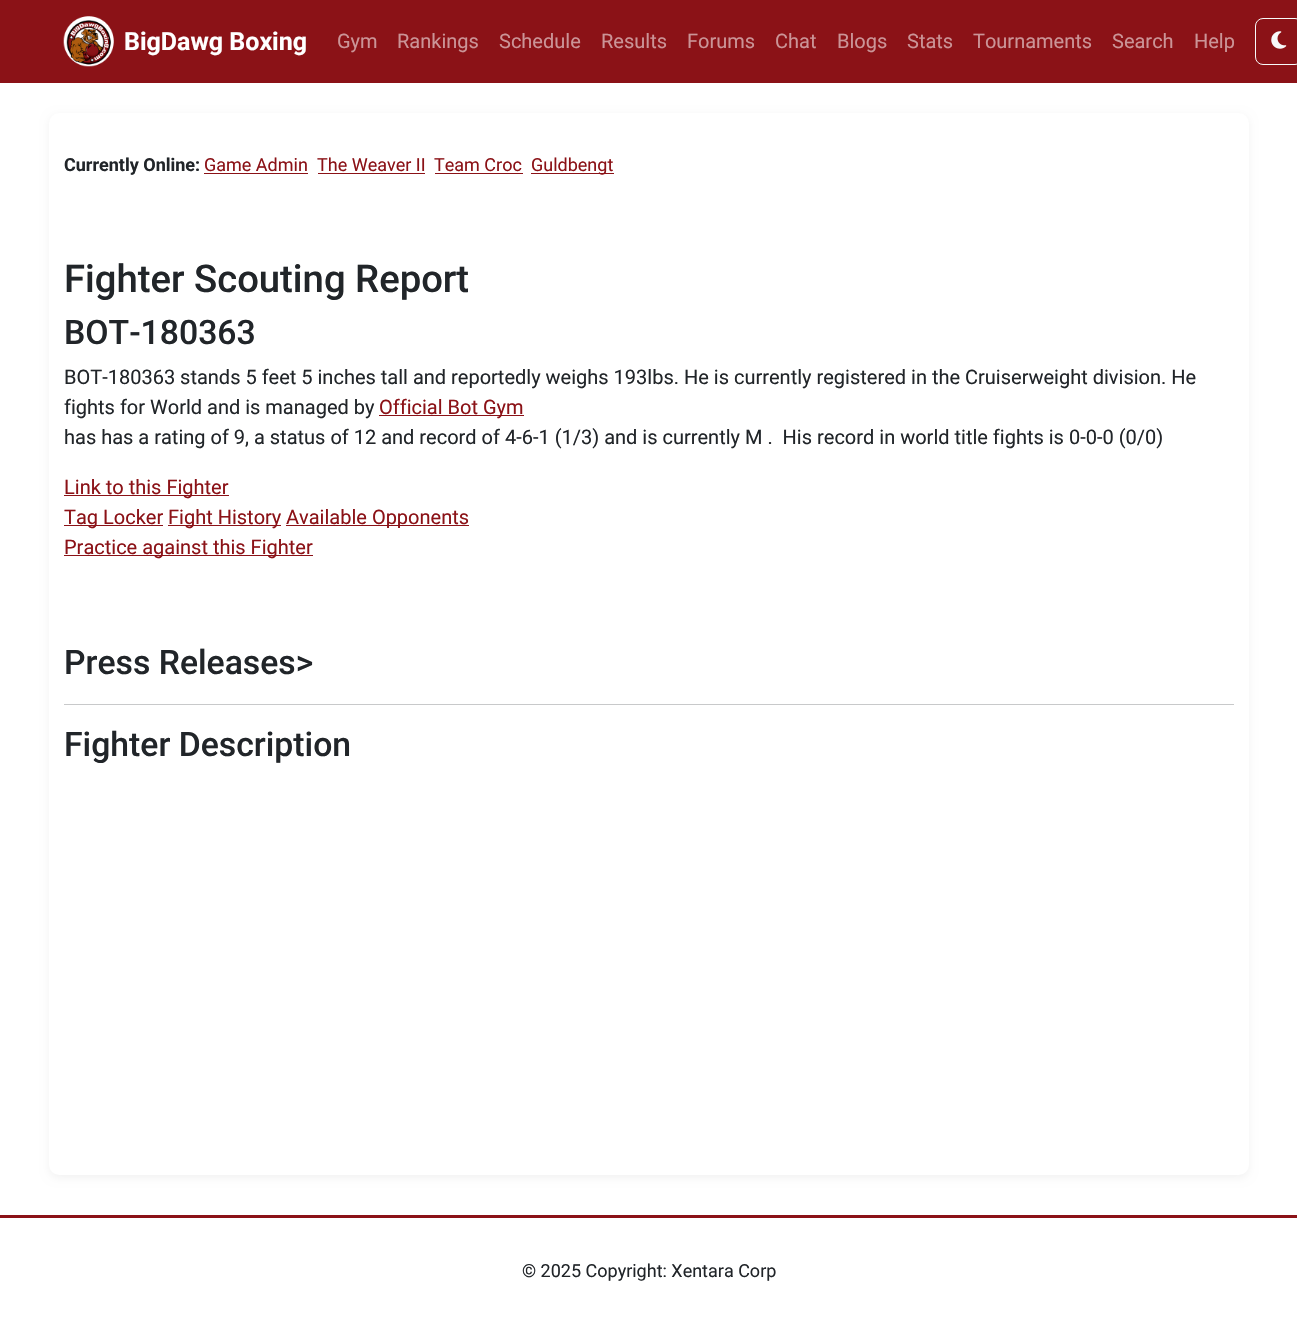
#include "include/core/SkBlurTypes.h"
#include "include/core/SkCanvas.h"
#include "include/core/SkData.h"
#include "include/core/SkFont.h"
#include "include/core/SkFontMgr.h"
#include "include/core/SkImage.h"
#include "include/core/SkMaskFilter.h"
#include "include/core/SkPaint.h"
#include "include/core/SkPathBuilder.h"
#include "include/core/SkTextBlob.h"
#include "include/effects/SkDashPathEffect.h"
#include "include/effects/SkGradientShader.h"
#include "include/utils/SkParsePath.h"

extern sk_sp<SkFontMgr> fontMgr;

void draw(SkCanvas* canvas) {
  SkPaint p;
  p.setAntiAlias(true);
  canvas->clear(SK_ColorWHITE);
  p.setColor(SkColorSetRGB(139, 18, 23));
  canvas->drawRect(SkRect::MakeLTRB(0, 0, 1297, 83), p);
  canvas->drawImageRect(SkImages::DeferredFromEncodedData(SkData::MakeFromFileName("images/1.png")), SkRect::MakeLTRB(63, 16, 114, 67), SkSamplingOptions());
  p.setStyle(SkPaint::kStroke_Style);
  p.setStrokeWidth(1);
  p.setColor(SkColorSetRGB(248, 249, 250));
  canvas->drawRoundRect(SkRect::MakeLTRB(1255.5f, 18.5f, 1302.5f, 64.5f), 7.5f, 7.5f, p);
  canvas->drawImageRect(SkImages::DeferredFromEncodedData(SkData::MakeFromFileName("images/2.png")), SkRect::MakeLTRB(1271, 31, 1287, 49), SkSamplingOptions());
  p.setStyle(SkPaint::kFill_Style);
  p.setColor(SkColorSetARGB(13, 0, 0, 0));
  p.setMaskFilter(SkMaskFilter::MakeBlur(kNormal_SkBlurStyle, 4));
  canvas->drawRoundRect(SkRect::MakeLTRB(49, 115, 1249, 1178), 10, 10, p);
  p.setMaskFilter(nullptr);
  p.setColor(SK_ColorWHITE);
  canvas->drawRoundRect(SkRect::MakeLTRB(49, 113, 1249, 1175), 10, 10, p);
  p.setColor(SkColorSetRGB(139, 18, 23));
  canvas->drawRect(SkRect::MakeLTRB(204, 173, 308, 174), p);
  canvas->drawRect(SkRect::MakeLTRB(318, 173, 425, 174), p);
  canvas->drawRect(SkRect::MakeLTRB(435, 173, 523, 174), p);
  canvas->drawRect(SkRect::MakeLTRB(531, 173, 614, 174), p);
  canvas->drawRect(SkRect::MakeLTRB(379, 415, 524, 416), p);
  canvas->drawRect(SkRect::MakeLTRB(64, 495, 229, 496), p);
  canvas->drawRect(SkRect::MakeLTRB(64, 525, 163, 526), p);
  canvas->drawRect(SkRect::MakeLTRB(168, 525, 281, 526), p);
  canvas->drawRect(SkRect::MakeLTRB(286, 525, 469, 526), p);
  canvas->drawRect(SkRect::MakeLTRB(64, 555, 313, 556), p);
  p.setColor(SkColorSetRGB(200, 201, 202));
  canvas->drawRect(SkRect::MakeLTRB(64, 704, 1234, 705), p);
  p.setColor(SkColorSetRGB(139, 18, 23));
  canvas->drawRect(SkRect::MakeLTRB(0, 1215, 1297, 1218), p);
  SkFont font1(fontMgr->matchFamilyStyle("Roboto", SkFontStyle::Bold()), 25);
  font1.setSubpixel(true);
  p.setColor(SK_ColorWHITE);
  canvas->drawString("BigDawg Boxing", 124, 50, font1, p);
  SkFont font2(fontMgr->matchFamilyStyle("Roboto", SkFontStyle::Normal()), 20);
  font2.setSubpixel(true);
  p.setColor(SkColorSetRGB(203, 148, 151));
  canvas->drawString("Gym", 337, 48, font2, p);
  canvas->drawString("Rankings", 397, 48, font2, p);
  canvas->drawString("Schedule", 499, 48, font2, p);
  canvas->drawString("Results", 601, 48, font2, p);
  canvas->drawString("Forums", 687, 48, font2, p);
  canvas->drawString("Chat", 775, 48, font2, p);
  canvas->drawString("Blogs", 837, 48, font2, p);
  canvas->drawString("Stats", 907, 48, font2, p);
  canvas->drawString("Tournaments", 973, 48, font2, p);
  canvas->drawString("Search", 1112, 48, font2, p);
  canvas->drawString("Help", 1194, 48, font2, p);
  SkFont font3(fontMgr->matchFamilyStyle("Roboto", SkFontStyle::Bold()), 18);
  font3.setSubpixel(true);
  p.setColor(SkColorSetRGB(33, 37, 41));
  canvas->drawString("Currently Online:", 64, 171, font3, p);
  SkFont font4(fontMgr->matchFamilyStyle("Roboto", SkFontStyle::Normal()), 18);
  font4.setSubpixel(true);
  p.setColor(SkColorSetRGB(139, 18, 23));
  canvas->drawString("Game Admin", 204, 171, font4, p);
  canvas->drawString("The Weaver II", 317, 171, font4, p);
  canvas->drawString("Team Croc", 434, 171, font4, p);
  canvas->drawString("Guldbengt", 531, 171, font4, p);
  SkFont font5(fontMgr->matchFamilyStyle("Roboto", SkFontStyle(500, SkFontStyle::kNormal_Width, SkFontStyle::kUpright_Slant)), 38.25f);
  font5.setSubpixel(true);
  p.setColor(SkColorSetRGB(33, 37, 41));
  canvas->drawString("Fighter Scouting Report", 64, 292, font5, p);
  SkFont font6(fontMgr->matchFamilyStyle("Roboto", SkFontStyle(500, SkFontStyle::kNormal_Width, SkFontStyle::kUpright_Slant)), 33.75f);
  font6.setSubpixel(true);
  canvas->drawString("BOT-180363", 64, 344, font6, p);
  canvas->drawString("BOT-180363 stands 5 feet 5 inches tall and reportedly weighs 193lbs. He is currently registered in the Cruiserweight division. He", 64, 384, font2, p);
  canvas->drawString("fights for World and is managed by", 64, 414, font2, p);
  p.setColor(SkColorSetRGB(139, 18, 23));
  canvas->drawString("Official Bot Gym", 379, 414, font2, p);
  p.setColor(SkColorSetRGB(33, 37, 41));
  canvas->drawString("has has a rating of 9, a status of 12 and record of 4-6-1 (1/3) and is currently M .  His record in world title fights is 0-0-0 (0/0)", 64, 444, font2, p);
  p.setColor(SkColorSetRGB(139, 18, 23));
  canvas->drawString("Link to this Fighter", 64, 494, font2, p);
  canvas->drawString("Tag Locker", 64, 524, font2, p);
  canvas->drawString("Fight History", 168, 524, font2, p);
  canvas->drawString("Available Opponents", 286, 524, font2, p);
  canvas->drawString("Practice against this Fighter", 64, 554, font2, p);
  p.setColor(SkColorSetRGB(33, 37, 41));
  canvas->drawString("Press Releases>", 64, 674, font6, p);
  canvas->drawString("Fighter Description", 64, 756, font6, p);
  canvas->drawString("© 2025 Copyright: Xentara Corp", 522, 1277, font4, p);
}
